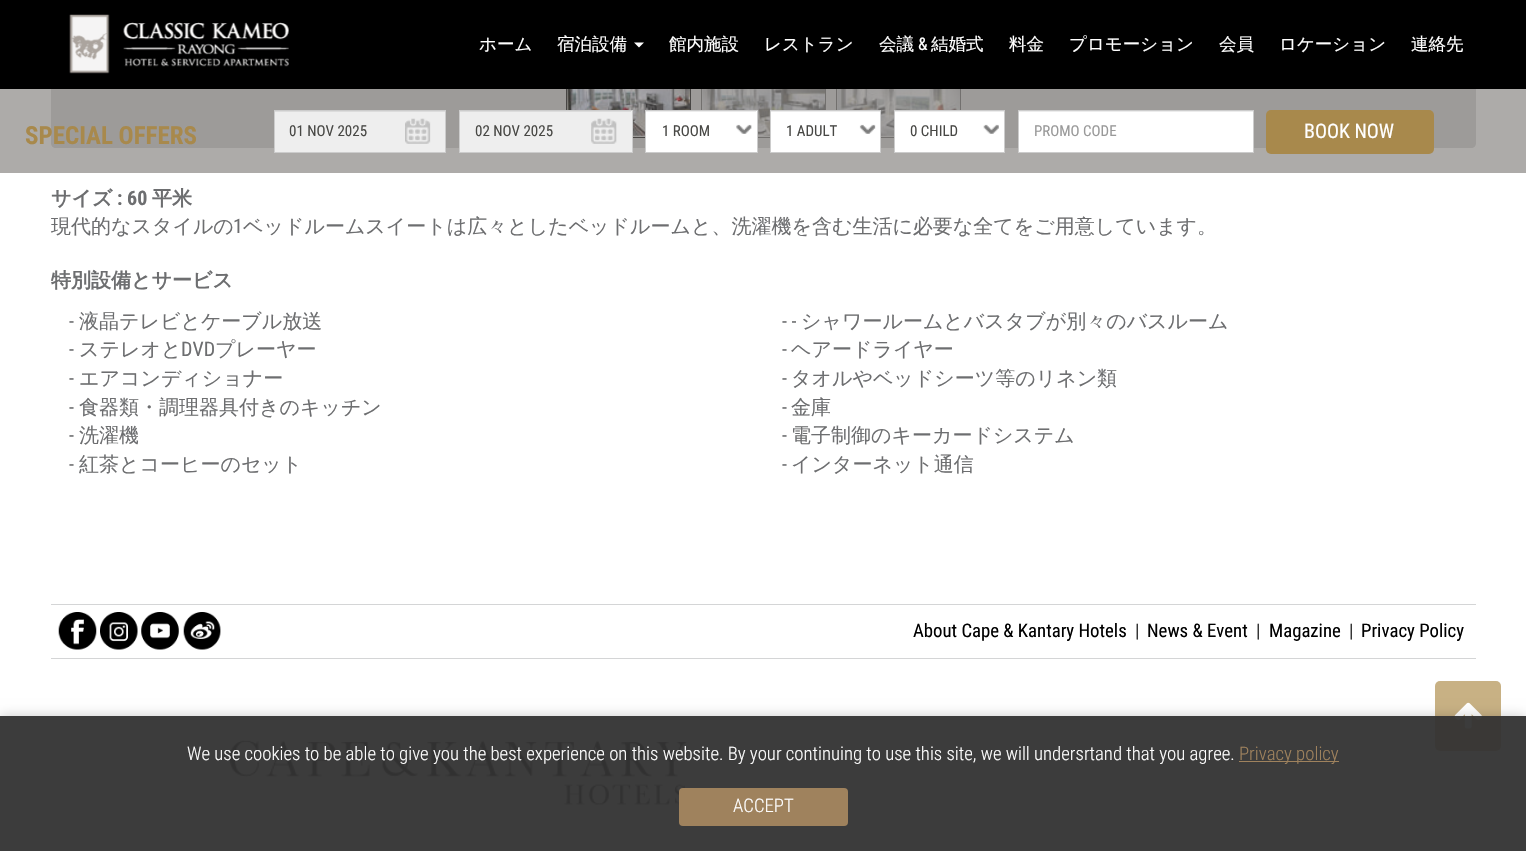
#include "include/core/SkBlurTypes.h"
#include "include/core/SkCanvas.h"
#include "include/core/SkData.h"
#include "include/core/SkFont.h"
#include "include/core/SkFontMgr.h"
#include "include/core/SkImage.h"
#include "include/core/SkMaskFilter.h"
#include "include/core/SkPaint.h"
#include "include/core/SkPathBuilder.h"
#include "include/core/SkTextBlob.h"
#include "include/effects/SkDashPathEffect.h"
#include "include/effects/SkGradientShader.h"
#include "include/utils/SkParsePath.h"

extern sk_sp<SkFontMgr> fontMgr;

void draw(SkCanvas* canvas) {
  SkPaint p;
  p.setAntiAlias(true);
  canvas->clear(SK_ColorWHITE);
  p.setColor(SkColorSetRGB(222, 222, 222));
  canvas->drawPath(SkPathBuilder().moveTo(51, 51).lineTo(1476, 51).lineTo(1476, 143).cubicTo(1476, 146, 1474, 148, 1471, 148).lineTo(56, 148).cubicTo(53, 148, 51, 146, 51, 143).close().detach(), p);
  p.setStyle(SkPaint::kStroke_Style);
  p.setStrokeWidth(1);
  p.setColor(SkColorSetRGB(51, 51, 51));
  canvas->drawRect(SkRect::MakeLTRB(566.5f, 61.5f, 690.5f, 137.5f), p);
  p.setColor(SkColorSetRGB(137, 137, 137));
  canvas->drawRect(SkRect::MakeLTRB(701.5f, 61.5f, 825.5f, 137.5f), p);
  canvas->drawRect(SkRect::MakeLTRB(836.5f, 61.5f, 960.5f, 137.5f), p);
  p.setStyle(SkPaint::kFill_Style);
  p.setColor(SK_ColorBLACK);
  canvas->drawRect(SkRect::MakeLTRB(0, 0, 1526, 89), p);
  canvas->drawImageRect(SkImages::DeferredFromEncodedData(SkData::MakeFromFileName("images/1.png")), SkRect::MakeLTRB(69, 14, 289, 74), SkSamplingOptions());
  p.setColor(SK_ColorWHITE);
  canvas->drawPath(SkPathBuilder().moveTo(634, 42.5f).lineTo(644, 42.5f).lineTo(639, 47.5f).close().detach(), p);
  canvas->drawImageRect(SkImages::DeferredFromEncodedData(SkData::MakeFromFileName("images/7.png")), SkRect::MakeLTRB(567, 89, 690, 136), SkSamplingOptions());
  canvas->drawImageRect(SkImages::DeferredFromEncodedData(SkData::MakeFromFileName("images/8.png")), SkRect::MakeLTRB(702, 89, 825, 136), SkSamplingOptions());
  canvas->drawImageRect(SkImages::DeferredFromEncodedData(SkData::MakeFromFileName("images/9.png")), SkRect::MakeLTRB(837, 89, 960, 136), SkSamplingOptions());
  p.setColor(SkColorSetARGB(128, 91, 87, 84));
  canvas->drawRect(SkRect::MakeLTRB(0, 89, 1526, 173), p);
  p.setColor(SkColorSetRGB(238, 238, 238));
  canvas->drawRect(SkRect::MakeLTRB(275, 112, 445, 152), p);
  canvas->drawImageRect(SkImages::DeferredFromEncodedData(SkData::MakeFromFileName("images/2.png")), SkRect::MakeLTRB(405, 118, 431, 144), SkSamplingOptions());
  p.setColor(SkColorSetRGB(220, 220, 220));
  canvas->drawRect(SkRect::MakeLTRB(275, 111, 445, 112), p);
  p.setStyle(SkPaint::kStroke_Style);
  p.setColor(SkColorSetRGB(204, 204, 204));
  canvas->drawRect(SkRect::MakeLTRB(274.5f, 110.5f, 445.5f, 152.5f), p);
  p.setStyle(SkPaint::kFill_Style);
  p.setColor(SkColorSetRGB(238, 238, 238));
  canvas->drawRect(SkRect::MakeLTRB(460, 111, 632, 152), p);
  canvas->drawImageRect(SkImages::DeferredFromEncodedData(SkData::MakeFromFileName("images/3.png")), SkRect::MakeLTRB(591, 118, 617, 144), SkSamplingOptions());
  p.setColor(SkColorSetRGB(220, 220, 220));
  canvas->drawRect(SkRect::MakeLTRB(460, 111, 631, 112), p);
  p.setStyle(SkPaint::kStroke_Style);
  p.setColor(SkColorSetRGB(204, 204, 204));
  canvas->drawRect(SkRect::MakeLTRB(459.5f, 110.5f, 632.5f, 152.5f), p);
  p.setStyle(SkPaint::kFill_Style);
  p.setColor(SK_ColorWHITE);
  canvas->drawRect(SkRect::MakeLTRB(646, 111, 757, 152), p);
  p.setColor(SkColorSetRGB(236, 236, 236));
  canvas->drawRect(SkRect::MakeLTRB(646, 111, 756, 112), p);
  p.setStyle(SkPaint::kStroke_Style);
  p.setColor(SkColorSetRGB(204, 204, 204));
  canvas->drawRect(SkRect::MakeLTRB(645.5f, 110.5f, 757.5f, 152.5f), p);
  canvas->drawImageRect(SkImages::DeferredFromEncodedData(SkData::MakeFromFileName("images/4.png")), SkRect::MakeLTRB(736, 124, 752, 134), SkSamplingOptions());
  p.setStyle(SkPaint::kFill_Style);
  p.setColor(SK_ColorWHITE);
  canvas->drawRect(SkRect::MakeLTRB(771, 112, 880, 152), p);
  p.setColor(SkColorSetRGB(236, 236, 236));
  canvas->drawRect(SkRect::MakeLTRB(771, 111, 880, 112), p);
  p.setStyle(SkPaint::kStroke_Style);
  p.setColor(SkColorSetRGB(204, 204, 204));
  canvas->drawRect(SkRect::MakeLTRB(770.5f, 110.5f, 880.5f, 152.5f), p);
  canvas->drawImageRect(SkImages::DeferredFromEncodedData(SkData::MakeFromFileName("images/5.png")), SkRect::MakeLTRB(859, 124, 876, 134), SkSamplingOptions());
  p.setStyle(SkPaint::kFill_Style);
  p.setColor(SK_ColorWHITE);
  canvas->drawRect(SkRect::MakeLTRB(895, 112, 1004, 152), p);
  p.setColor(SkColorSetRGB(236, 236, 236));
  canvas->drawRect(SkRect::MakeLTRB(895, 111, 1004, 112), p);
  p.setStyle(SkPaint::kStroke_Style);
  p.setColor(SkColorSetRGB(204, 204, 204));
  canvas->drawRect(SkRect::MakeLTRB(894.5f, 110.5f, 1004.5f, 152.5f), p);
  canvas->drawImageRect(SkImages::DeferredFromEncodedData(SkData::MakeFromFileName("images/6.png")), SkRect::MakeLTRB(983, 124, 999, 134), SkSamplingOptions());
  p.setStyle(SkPaint::kFill_Style);
  p.setColor(SK_ColorWHITE);
  canvas->drawRect(SkRect::MakeLTRB(1019, 112, 1253, 152), p);
  p.setColor(SkColorSetRGB(236, 236, 236));
  canvas->drawRect(SkRect::MakeLTRB(1019, 111, 1253, 112), p);
  p.setStyle(SkPaint::kStroke_Style);
  p.setColor(SkColorSetRGB(204, 204, 204));
  canvas->drawRect(SkRect::MakeLTRB(1018.5f, 110.5f, 1253.5f, 152.5f), p);
  p.setStyle(SkPaint::kFill_Style);
  p.setColor(SkColorSetRGB(168, 137, 76));
  canvas->drawRoundRect(SkRect::MakeLTRB(1266, 110, 1434, 154), 5, 5, p);
  p.setColor(SkColorSetRGB(212, 213, 214));
  canvas->drawRect(SkRect::MakeLTRB(51, 604, 1476, 605), p);
  canvas->drawRect(SkRect::MakeLTRB(51, 658, 1476, 659), p);
  canvas->drawImageRect(SkImages::DeferredFromEncodedData(SkData::MakeFromFileName("images/10.png")), SkRect::MakeLTRB(58, 612, 97, 650), SkSamplingOptions());
  canvas->drawImageRect(SkImages::DeferredFromEncodedData(SkData::MakeFromFileName("images/11.png")), SkRect::MakeLTRB(100, 612, 138, 650), SkSamplingOptions());
  canvas->drawImageRect(SkImages::DeferredFromEncodedData(SkData::MakeFromFileName("images/12.png")), SkRect::MakeLTRB(141, 612, 179, 650), SkSamplingOptions());
  canvas->drawImageRect(SkImages::DeferredFromEncodedData(SkData::MakeFromFileName("images/13.png")), SkRect::MakeLTRB(183, 612, 221, 650), SkSamplingOptions());
  canvas->drawImageRect(SkImages::DeferredFromEncodedData(SkData::MakeFromFileName("images/14.png")), SkRect::MakeLTRB(230, 740, 687, 805), SkSamplingOptions());
  p.setColor(SkColorSetRGB(200, 177, 132));
  canvas->drawRoundRect(SkRect::MakeLTRB(1435, 681, 1501, 751), 5, 5, p);
  canvas->drawImageRect(SkImages::DeferredFromEncodedData(SkData::MakeFromFileName("images/15.png")), SkRect::MakeLTRB(1454, 702, 1482, 729), SkSamplingOptions());
  canvas->save();
  canvas->clipPath(SkPathBuilder(SkPathFillType::kEvenOdd).moveTo(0, 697).lineTo(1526, 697).lineTo(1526, 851).lineTo(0, 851).close().moveTo(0, 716).lineTo(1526, 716).lineTo(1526, 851).lineTo(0, 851).close().detach(), true);
  p.setColor(SkColorSetARGB(51, 0, 0, 0));
  p.setMaskFilter(SkMaskFilter::MakeBlur(kNormal_SkBlurStyle, 6));
  canvas->drawRect(SkRect::MakeLTRB(0, 716, 1526, 851), p);
  p.setMaskFilter(nullptr);
  canvas->restore();
  p.setColor(SkColorSetARGB(242, 50, 50, 50));
  canvas->drawRect(SkRect::MakeLTRB(0, 716, 1526, 851), p);
  p.setColor(SkColorSetRGB(159, 130, 93));
  canvas->drawRect(SkRect::MakeLTRB(1239, 761, 1339, 762), p);
  canvas->drawRoundRect(SkRect::MakeLTRB(679, 788, 848, 826), 4, 4, p);
  SkFont font1(fontMgr->matchFamilyStyle("WenQuanYi Zen Hei", SkFontStyle(500, SkFontStyle::kNormal_Width, SkFontStyle::kUpright_Slant)), 17.5f);
  font1.setSubpixel(true);
  p.setColor(SK_ColorWHITE);
  canvas->drawString("ホーム", 479, 50, font1, p);
  canvas->drawString("宿泊設備", 557, 50, font1, p);
  canvas->drawString("館内施設", 669, 50, font1, p);
  canvas->drawString("レストラン", 764, 50, font1, p);
  canvas->drawString("会議", 879, 50, font1, p);
  SkFont font2(fontMgr->matchFamilyStyle("Roboto Condensed", SkFontStyle::Normal()), 17.5f);
  font2.setSubpixel(true);
  canvas->drawString("&", 918, 50, font2, p);
  canvas->drawString("結婚式", 931, 50, font1, p);
  canvas->drawString("料金", 1009, 50, font1, p);
  canvas->drawString("プロモーション", 1069, 50, font1, p);
  canvas->drawString("会員", 1219, 50, font1, p);
  canvas->drawString("ロケーション", 1279, 50, font1, p);
  canvas->drawString("連絡先", 1411, 50, font1, p);
  SkFont font3(fontMgr->matchFamilyStyle("Roboto Condensed", SkFontStyle::Bold()), 25);
  font3.setSubpixel(true);
  p.setColor(SkColorSetRGB(168, 137, 76));
  canvas->drawString("SPECIAL OFFERS", 25, 144, font3, p);
  SkFont font4(fontMgr->matchFamilyStyle("Roboto Condensed", SkFontStyle::Normal()), 15);
  font4.setSubpixel(true);
  p.setColor(SkColorSetRGB(72, 72, 69));
  canvas->drawString("01 NOV 2025", 289, 136, font4, p);
  canvas->drawString("02 NOV 2025", 475, 136, font4, p);
  canvas->drawString("1 ROOM", 662, 136, font4, p);
  canvas->drawString("1 ADULT", 786, 136, font4, p);
  canvas->drawString("0 CHILD", 910, 136, font4, p);
  p.setColor(SkColorSetRGB(153, 153, 153));
  canvas->drawString("PROMO CODE", 1034, 136, font4, p);
  SkFont font5(fontMgr->matchFamilyStyle("Roboto Condensed", SkFontStyle::Normal()), 20);
  font5.setSubpixel(true);
  p.setColor(SK_ColorWHITE);
  canvas->drawString("BOOK NOW", 1304, 138, font5, p);
  SkFont font6(fontMgr->matchFamilyStyle("WenQuanYi Zen Hei", SkFontStyle::Bold()), 20);
  font6.setSubpixel(true);
  p.setColor(SkColorSetRGB(109, 110, 112));
  canvas->drawString("サイズ", 51, 205, font6, p);
  SkFont font7(fontMgr->matchFamilyStyle("Roboto Condensed", SkFontStyle::Bold()), 20);
  font7.setSubpixel(true);
  canvas->drawString(": 60", 117, 205, font7, p);
  canvas->drawString("平米", 152, 205, font6, p);
  SkFont font8(fontMgr->matchFamilyStyle("WenQuanYi Zen Hei", SkFontStyle(500, SkFontStyle::kNormal_Width, SkFontStyle::kUpright_Slant)), 20);
  font8.setSubpixel(true);
  canvas->drawString("現代的なスタイルの", 51, 233, font8, p);
  canvas->drawString("1", 233, 233, font5, p);
  canvas->drawString("ベッドルームスイートは広々としたベッドルームと、洗濯機を含む生活に必要な全てをご用意しています。", 243, 233, font8, p);
  canvas->drawString("特別設備とサービス", 51, 287, font6, p);
  canvas->drawString("-", 69, 328, font5, p);
  canvas->drawString("液晶テレビとケーブル放送", 79, 328, font8, p);
  canvas->drawString("-", 69, 356, font5, p);
  canvas->drawString("ステレオと", 79, 356, font8, p);
  canvas->drawString("DVD", 181, 356, font5, p);
  canvas->drawString("プレーヤー", 215, 356, font8, p);
  canvas->drawString("-", 69, 385, font5, p);
  canvas->drawString("エアコンディショナー", 79, 385, font8, p);
  canvas->drawString("-", 69, 414, font5, p);
  canvas->drawString("食器類・調理器具付きのキッチン", 79, 414, font8, p);
  canvas->drawString("-", 69, 442, font5, p);
  canvas->drawString("洗濯機", 79, 442, font8, p);
  canvas->drawString("-", 69, 471, font5, p);
  canvas->drawString("紅茶とコーヒーのセット", 79, 471, font8, p);
  canvas->drawString("- -", 782, 328, font5, p);
  canvas->drawString("シャワールームとバスタブが別々のバスルーム", 801, 328, font8, p);
  canvas->drawString("-", 782, 356, font5, p);
  canvas->drawString("ヘアードライヤー", 791, 356, font8, p);
  canvas->drawString("-", 782, 385, font5, p);
  canvas->drawString("タオルやベッドシーツ等のリネン類", 791, 385, font8, p);
  canvas->drawString("-", 782, 414, font5, p);
  canvas->drawString("金庫", 791, 414, font8, p);
  canvas->drawString("-", 782, 442, font5, p);
  canvas->drawString("電子制御のキーカードシステム", 791, 442, font8, p);
  canvas->drawString("-", 782, 471, font5, p);
  canvas->drawString("インターネット通信", 791, 471, font8, p);
  SkFont font9(fontMgr->matchFamilyStyle("Roboto Condensed", SkFontStyle::Normal()), 18.75f);
  font9.setSubpixel(true);
  p.setColor(SK_ColorBLACK);
  canvas->drawString("About Cape & Kantary Hotels", 913, 637, font9, p);
  p.setColor(SkColorSetRGB(51, 51, 51));
  canvas->drawString("|", 1135, 637, font9, p);
  p.setColor(SK_ColorBLACK);
  canvas->drawString("News & Event", 1147, 637, font9, p);
  p.setColor(SkColorSetRGB(51, 51, 51));
  canvas->drawString("|", 1256, 637, font9, p);
  p.setColor(SK_ColorBLACK);
  canvas->drawString("Magazine", 1269, 637, font9, p);
  p.setColor(SkColorSetRGB(51, 51, 51));
  canvas->drawString("|", 1349, 637, font9, p);
  p.setColor(SK_ColorBLACK);
  canvas->drawString("Privacy Policy", 1361, 637, font9, p);
  SkFont font10(fontMgr->matchFamilyStyle("Roboto Condensed", SkFontStyle(300, SkFontStyle::kNormal_Width, SkFontStyle::kUpright_Slant)), 18.75f);
  font10.setSubpixel(true);
  p.setColor(SK_ColorWHITE);
  canvas->drawString("We use cookies to be able to give you the best experience on this website. By your continuing to use this site, we will undersrtand that you agree.", 187, 760, font10, p);
  p.setColor(SkColorSetRGB(159, 130, 93));
  canvas->drawString("Privacy policy", 1239, 760, font10, p);
  p.setColor(SK_ColorWHITE);
  canvas->drawString("ACCEPT", 733, 812, font10, p);
}
